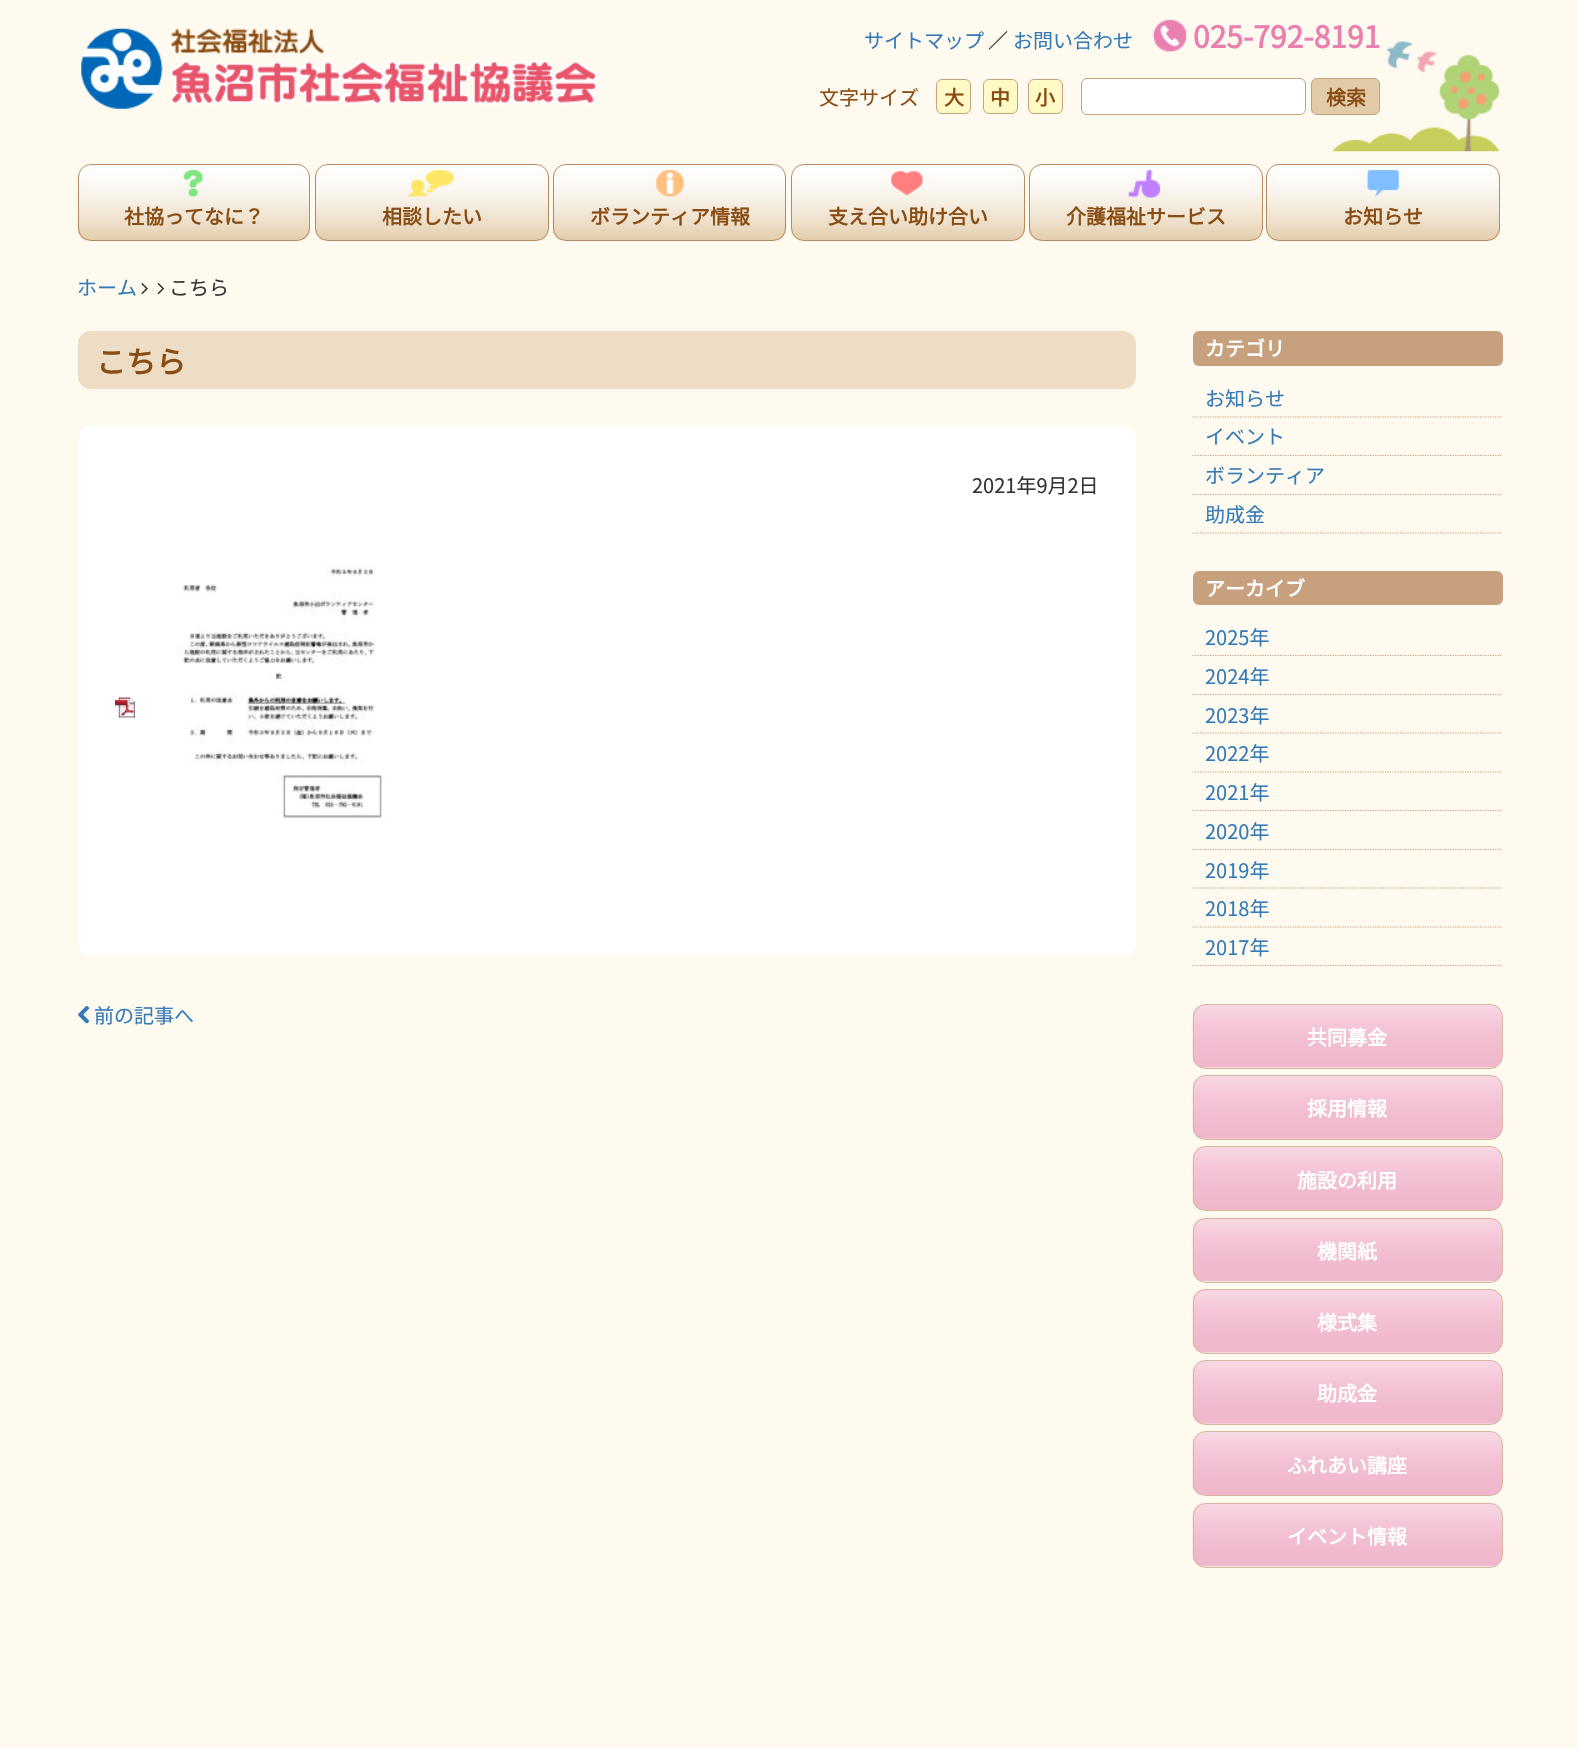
#include "include/core/SkBlurTypes.h"
#include "include/core/SkCanvas.h"
#include "include/core/SkData.h"
#include "include/core/SkFont.h"
#include "include/core/SkFontMgr.h"
#include "include/core/SkImage.h"
#include "include/core/SkMaskFilter.h"
#include "include/core/SkPaint.h"
#include "include/core/SkPathBuilder.h"
#include "include/core/SkTextBlob.h"
#include "include/effects/SkDashPathEffect.h"
#include "include/effects/SkGradientShader.h"
#include "include/utils/SkParsePath.h"

extern sk_sp<SkFontMgr> fontMgr;

void draw(SkCanvas* canvas) {
  SkPaint p;
  p.setAntiAlias(true);
  canvas->clear(SkColorSetRGB(255, 250, 239));
  canvas->drawImageRect(SkImages::DeferredFromEncodedData(SkData::MakeFromFileName("images/1.png")), SkRect::MakeLTRB(1332, 41, 1500, 152), SkSamplingOptions());
  canvas->drawImageRect(SkImages::DeferredFromEncodedData(SkData::MakeFromFileName("images/2.png")), SkRect::MakeLTRB(81, 28, 598, 109), SkSamplingOptions());
  canvas->drawImageRect(SkImages::DeferredFromEncodedData(SkData::MakeFromFileName("images/3.png")), SkRect::MakeLTRB(1153, 19, 1187, 52), SkSamplingOptions());
  p.setColor(SkColorSetRGB(255, 250, 198));
  canvas->drawRoundRect(SkRect::MakeLTRB(936.5f, 79.5f, 970.5f, 113.5f), 5.5f, 5.5f, p);
  p.setStyle(SkPaint::kStroke_Style);
  p.setStrokeWidth(1);
  p.setColor(SkColorSetRGB(199, 161, 126));
  canvas->drawRoundRect(SkRect::MakeLTRB(936.5f, 79.5f, 970.5f, 113.5f), 5.5f, 5.5f, p);
  p.setStyle(SkPaint::kFill_Style);
  p.setColor(SkColorSetRGB(255, 250, 198));
  canvas->drawRoundRect(SkRect::MakeLTRB(983.5f, 79.5f, 1017.5f, 113.5f), 5.5f, 5.5f, p);
  p.setStyle(SkPaint::kStroke_Style);
  p.setColor(SkColorSetRGB(199, 161, 126));
  canvas->drawRoundRect(SkRect::MakeLTRB(983.5f, 79.5f, 1017.5f, 113.5f), 5.5f, 5.5f, p);
  p.setStyle(SkPaint::kFill_Style);
  p.setColor(SkColorSetRGB(255, 250, 198));
  canvas->drawRoundRect(SkRect::MakeLTRB(1028.5f, 79.5f, 1062.5f, 113.5f), 5.5f, 5.5f, p);
  p.setStyle(SkPaint::kStroke_Style);
  p.setColor(SkColorSetRGB(199, 161, 126));
  canvas->drawRoundRect(SkRect::MakeLTRB(1028.5f, 79.5f, 1062.5f, 113.5f), 5.5f, 5.5f, p);
  p.setStyle(SkPaint::kFill_Style);
  p.setColor(SK_ColorWHITE);
  canvas->drawRoundRect(SkRect::MakeLTRB(1081.5f, 78.5f, 1305.5f, 114.5f), 5.5f, 5.5f, p);
  p.setStyle(SkPaint::kStroke_Style);
  p.setColor(SkColorSetRGB(199, 161, 126));
  canvas->drawRoundRect(SkRect::MakeLTRB(1081.5f, 78.5f, 1305.5f, 114.5f), 5.5f, 5.5f, p);
  p.setStyle(SkPaint::kFill_Style);
  p.setColor(SkColorSetRGB(226, 203, 168));
  canvas->drawRoundRect(SkRect::MakeLTRB(1311.5f, 78.5f, 1379.5f, 114.5f), 5.5f, 5.5f, p);
  p.setStyle(SkPaint::kStroke_Style);
  p.setColor(SkColorSetRGB(199, 161, 126));
  canvas->drawRoundRect(SkRect::MakeLTRB(1311.5f, 78.5f, 1379.5f, 114.5f), 5.5f, 5.5f, p);
  canvas->drawImageRect(SkImages::DeferredFromEncodedData(SkData::MakeFromFileName("images/4.png")), SkRect::MakeLTRB(77, 164, 310, 240), SkSamplingOptions());
  p.setColor(SkColorSetRGB(184, 138, 97));
  canvas->drawRoundRect(SkRect::MakeLTRB(78.5f, 164.5f, 309.5f, 240.5f), 12.5f, 12.5f, p);
  canvas->drawImageRect(SkImages::DeferredFromEncodedData(SkData::MakeFromFileName("images/5.png")), SkRect::MakeLTRB(183, 169, 203, 197), SkSamplingOptions());
  canvas->drawImageRect(SkImages::DeferredFromEncodedData(SkData::MakeFromFileName("images/6.png")), SkRect::MakeLTRB(315, 164, 549, 240), SkSamplingOptions());
  canvas->drawRoundRect(SkRect::MakeLTRB(315.5f, 164.5f, 548.5f, 240.5f), 12.5f, 12.5f, p);
  canvas->drawImageRect(SkImages::DeferredFromEncodedData(SkData::MakeFromFileName("images/7.png")), SkRect::MakeLTRB(408, 169, 454, 197), SkSamplingOptions());
  canvas->drawImageRect(SkImages::DeferredFromEncodedData(SkData::MakeFromFileName("images/8.png")), SkRect::MakeLTRB(552, 164, 786, 240), SkSamplingOptions());
  canvas->drawRoundRect(SkRect::MakeLTRB(553.5f, 164.5f, 785.5f, 240.5f), 12.5f, 12.5f, p);
  canvas->drawImageRect(SkImages::DeferredFromEncodedData(SkData::MakeFromFileName("images/9.png")), SkRect::MakeLTRB(656, 169, 684, 197), SkSamplingOptions());
  canvas->drawImageRect(SkImages::DeferredFromEncodedData(SkData::MakeFromFileName("images/10.png")), SkRect::MakeLTRB(791, 164, 1025, 240), SkSamplingOptions());
  canvas->drawRoundRect(SkRect::MakeLTRB(791.5f, 164.5f, 1024.5f, 240.5f), 12.5f, 12.5f, p);
  canvas->drawImageRect(SkImages::DeferredFromEncodedData(SkData::MakeFromFileName("images/11.png")), SkRect::MakeLTRB(891, 171, 923, 196), SkSamplingOptions());
  canvas->drawImageRect(SkImages::DeferredFromEncodedData(SkData::MakeFromFileName("images/12.png")), SkRect::MakeLTRB(1029, 164, 1263, 240), SkSamplingOptions());
  canvas->drawRoundRect(SkRect::MakeLTRB(1029.5f, 164.5f, 1262.5f, 240.5f), 12.5f, 12.5f, p);
  canvas->drawImageRect(SkImages::DeferredFromEncodedData(SkData::MakeFromFileName("images/13.png")), SkRect::MakeLTRB(1128, 169, 1161, 198), SkSamplingOptions());
  canvas->drawImageRect(SkImages::DeferredFromEncodedData(SkData::MakeFromFileName("images/14.png")), SkRect::MakeLTRB(1266, 164, 1500, 240), SkSamplingOptions());
  canvas->drawRoundRect(SkRect::MakeLTRB(1266.5f, 164.5f, 1499.5f, 240.5f), 12.5f, 12.5f, p);
  canvas->drawImageRect(SkImages::DeferredFromEncodedData(SkData::MakeFromFileName("images/15.png")), SkRect::MakeLTRB(1367, 169, 1399, 197), SkSamplingOptions());
  canvas->drawImageRect(SkImages::DeferredFromEncodedData(SkData::MakeFromFileName("images/16.png")), SkRect::MakeLTRB(141, 283, 148, 295), SkSamplingOptions());
  canvas->drawImageRect(SkImages::DeferredFromEncodedData(SkData::MakeFromFileName("images/17.png")), SkRect::MakeLTRB(157, 283, 165, 295), SkSamplingOptions());
  p.setStyle(SkPaint::kFill_Style);
  p.setColor(SkColorSetRGB(237, 221, 197));
  canvas->drawRoundRect(SkRect::MakeLTRB(78, 331, 1136, 389), 13, 13, p);
  p.setColor(SK_ColorWHITE);
  canvas->drawRoundRect(SkRect::MakeLTRB(78, 426, 1136, 956), 13, 13, p);
  canvas->drawImageRect(SkImages::DeferredFromEncodedData(SkData::MakeFromFileName("images/18.png")), SkRect::MakeLTRB(115, 697, 135, 718), SkSamplingOptions());
  canvas->drawImageRect(SkImages::DeferredFromEncodedData(SkData::MakeFromFileName("images/19.png")), SkRect::MakeLTRB(178, 564, 386, 821), SkSamplingOptions());
  canvas->drawImageRect(SkImages::DeferredFromEncodedData(SkData::MakeFromFileName("images/20.png")), SkRect::MakeLTRB(78, 1006, 89, 1024), SkSamplingOptions());
  p.setColor(SkColorSetRGB(199, 161, 126));
  canvas->drawRoundRect(SkRect::MakeLTRB(1193, 331, 1503, 366), 6, 6, p);
  p.setStyle(SkPaint::kStroke_Style);
  p.setStrokeWidth(1.2f);
  p.setPathEffect(SkDashPathEffect::Make({{1.25f, 1.25f}}, 0));
  canvas->drawPath(SkPathBuilder().moveTo(1192.5f, 417).lineTo(1502.5f, 417).detach(), p);
  p.setPathEffect(nullptr);
  p.setPathEffect(SkDashPathEffect::Make({{1.25f, 1.25f}}, 0));
  canvas->drawPath(SkPathBuilder().moveTo(1192.5f, 455.5f).lineTo(1502.5f, 455.5f).detach(), p);
  p.setPathEffect(nullptr);
  p.setPathEffect(SkDashPathEffect::Make({{1.25f, 1.25f}}, 0));
  canvas->drawPath(SkPathBuilder().moveTo(1192.5f, 494.5f).lineTo(1502.5f, 494.5f).detach(), p);
  p.setPathEffect(nullptr);
  p.setPathEffect(SkDashPathEffect::Make({{1.25f, 1.25f}}, 0));
  canvas->drawPath(SkPathBuilder().moveTo(1192.5f, 533).lineTo(1502.5f, 533).detach(), p);
  p.setPathEffect(nullptr);
  p.setStyle(SkPaint::kFill_Style);
  canvas->drawRoundRect(SkRect::MakeLTRB(1193, 571, 1503, 605), 6, 6, p);
  p.setStyle(SkPaint::kStroke_Style);
  p.setPathEffect(SkDashPathEffect::Make({{1.25f, 1.25f}}, 0));
  canvas->drawPath(SkPathBuilder().moveTo(1192.5f, 655.5f).lineTo(1502.5f, 655.5f).detach(), p);
  p.setPathEffect(nullptr);
  p.setPathEffect(SkDashPathEffect::Make({{1.25f, 1.25f}}, 0));
  canvas->drawPath(SkPathBuilder().moveTo(1192.5f, 694.5f).lineTo(1502.5f, 694.5f).detach(), p);
  p.setPathEffect(nullptr);
  p.setPathEffect(SkDashPathEffect::Make({{1.25f, 1.25f}}, 0));
  canvas->drawPath(SkPathBuilder().moveTo(1192.5f, 733).lineTo(1502.5f, 733).detach(), p);
  p.setPathEffect(nullptr);
  p.setPathEffect(SkDashPathEffect::Make({{1.25f, 1.25f}}, 0));
  canvas->drawPath(SkPathBuilder().moveTo(1192.5f, 772).lineTo(1502.5f, 772).detach(), p);
  p.setPathEffect(nullptr);
  p.setPathEffect(SkDashPathEffect::Make({{1.25f, 1.25f}}, 0));
  canvas->drawPath(SkPathBuilder().moveTo(1192.5f, 810.5f).lineTo(1502.5f, 810.5f).detach(), p);
  p.setPathEffect(nullptr);
  p.setPathEffect(SkDashPathEffect::Make({{1.25f, 1.25f}}, 0));
  canvas->drawPath(SkPathBuilder().moveTo(1192.5f, 849.5f).lineTo(1502.5f, 849.5f).detach(), p);
  p.setPathEffect(nullptr);
  p.setPathEffect(SkDashPathEffect::Make({{1.25f, 1.25f}}, 0));
  canvas->drawPath(SkPathBuilder().moveTo(1192.5f, 888).lineTo(1502.5f, 888).detach(), p);
  p.setPathEffect(nullptr);
  p.setPathEffect(SkDashPathEffect::Make({{1.25f, 1.25f}}, 0));
  canvas->drawPath(SkPathBuilder().moveTo(1192.5f, 927).lineTo(1502.5f, 927).detach(), p);
  p.setPathEffect(nullptr);
  p.setPathEffect(SkDashPathEffect::Make({{1.25f, 1.25f}}, 0));
  canvas->drawPath(SkPathBuilder().moveTo(1192.5f, 965.5f).lineTo(1502.5f, 965.5f).detach(), p);
  p.setPathEffect(nullptr);
  canvas->drawImageRect(SkImages::DeferredFromEncodedData(SkData::MakeFromFileName("images/21.png")), SkRect::MakeLTRB(1192, 1004, 1503, 1068), SkSamplingOptions());
  p.setStrokeWidth(1);
  p.setColor(SkColorSetRGB(214, 184, 156));
  canvas->drawRoundRect(SkRect::MakeLTRB(1193.5f, 1004.5f, 1502.5f, 1068.5f), 12.5f, 12.5f, p);
  canvas->drawImageRect(SkImages::DeferredFromEncodedData(SkData::MakeFromFileName("images/22.png")), SkRect::MakeLTRB(1192, 1075, 1503, 1139), SkSamplingOptions());
  canvas->drawRoundRect(SkRect::MakeLTRB(1193.5f, 1075.5f, 1502.5f, 1139.5f), 12.5f, 12.5f, p);
  canvas->drawImageRect(SkImages::DeferredFromEncodedData(SkData::MakeFromFileName("images/23.png")), SkRect::MakeLTRB(1192, 1146, 1503, 1210), SkSamplingOptions());
  canvas->drawRoundRect(SkRect::MakeLTRB(1193.5f, 1146.5f, 1502.5f, 1210.5f), 12.5f, 12.5f, p);
  canvas->drawImageRect(SkImages::DeferredFromEncodedData(SkData::MakeFromFileName("images/24.png")), SkRect::MakeLTRB(1192, 1217, 1503, 1282), SkSamplingOptions());
  canvas->drawRoundRect(SkRect::MakeLTRB(1193.5f, 1218.5f, 1502.5f, 1282.5f), 12.5f, 12.5f, p);
  canvas->drawImageRect(SkImages::DeferredFromEncodedData(SkData::MakeFromFileName("images/21.png")), SkRect::MakeLTRB(1192, 1289, 1503, 1353), SkSamplingOptions());
  canvas->drawRoundRect(SkRect::MakeLTRB(1193.5f, 1289.5f, 1502.5f, 1353.5f), 12.5f, 12.5f, p);
  canvas->drawImageRect(SkImages::DeferredFromEncodedData(SkData::MakeFromFileName("images/22.png")), SkRect::MakeLTRB(1192, 1360, 1503, 1424), SkSamplingOptions());
  canvas->drawRoundRect(SkRect::MakeLTRB(1193.5f, 1360.5f, 1502.5f, 1424.5f), 12.5f, 12.5f, p);
  canvas->drawImageRect(SkImages::DeferredFromEncodedData(SkData::MakeFromFileName("images/25.png")), SkRect::MakeLTRB(1192, 1431, 1503, 1495), SkSamplingOptions());
  canvas->drawRoundRect(SkRect::MakeLTRB(1193.5f, 1431.5f, 1502.5f, 1495.5f), 12.5f, 12.5f, p);
  canvas->drawImageRect(SkImages::DeferredFromEncodedData(SkData::MakeFromFileName("images/26.png")), SkRect::MakeLTRB(1192, 1502, 1503, 1567), SkSamplingOptions());
  canvas->drawRoundRect(SkRect::MakeLTRB(1193.5f, 1503.5f, 1502.5f, 1567.5f), 12.5f, 12.5f, p);
  SkFont font1(fontMgr->matchFamilyStyle("Noto Sans CJK JP", SkFontStyle::Normal()), 20);
  font1.setSubpixel(true);
  p.setStyle(SkPaint::kFill_Style);
  p.setColor(SkColorSetRGB(51, 122, 183));
  canvas->drawString("サイトマップ", 864, 48, font1, p);
  p.setColor(SkColorSetRGB(51, 51, 51));
  canvas->drawString("／", 988, 48, font1, p);
  p.setColor(SkColorSetRGB(51, 122, 183));
  canvas->drawString("お問い合わせ", 1013, 48, font1, p);
  SkFont font2(fontMgr->matchFamilyStyle("Noto Sans CJK JP", SkFontStyle::Bold()), 30);
  font2.setSubpixel(true);
  p.setColor(SkColorSetRGB(234, 128, 176));
  canvas->drawString("025-792-8191", 1193, 48, font2, p);
  p.setColor(SkColorSetRGB(137, 77, 20));
  canvas->drawString("文字サイズ", 819, 105, font1, p);
  SkFont font3(fontMgr->matchFamilyStyle("Noto Sans CJK JP", SkFontStyle::Bold()), 20);
  font3.setSubpixel(true);
  canvas->drawString("大", 944, 105, font3, p);
  canvas->drawString("中", 990, 105, font3, p);
  canvas->drawString("小", 1035, 105, font3, p);
  canvas->drawString("検索", 1326, 105, font3, p);
  canvas->drawString("社協ってなに？", 124, 224, font3, p);
  canvas->drawString("相談したい", 382, 224, font3, p);
  canvas->drawString("ボランティア情報", 590, 224, font3, p);
  canvas->drawString("支え合い助け合い", 828, 224, font3, p);
  canvas->drawString("介護福祉サービス", 1066, 224, font3, p);
  canvas->drawString("お知らせ", 1343, 224, font3, p);
  p.setColor(SkColorSetRGB(51, 122, 183));
  canvas->drawString("ホーム", 77, 295, font1, p);
  p.setColor(SkColorSetRGB(51, 51, 51));
  canvas->drawString("こちら", 169, 295, font1, p);
  p.setColor(SkColorSetRGB(137, 77, 20));
  canvas->drawString("こちら", 96, 373, font2, p);
  p.setColor(SkColorSetRGB(51, 51, 51));
  canvas->drawString("2021年9月2日", 972, 493, font1, p);
  p.setColor(SkColorSetRGB(51, 122, 183));
  canvas->drawString("前の記事へ", 94, 1023, font1, p);
  p.setColor(SK_ColorWHITE);
  canvas->drawString("カテゴリ", 1205, 356, font3, p);
  p.setColor(SkColorSetRGB(51, 122, 183));
  canvas->drawString("お知らせ", 1205, 406, font1, p);
  canvas->drawString("イベント", 1205, 444, font1, p);
  canvas->drawString("ボランティア", 1205, 483, font1, p);
  canvas->drawString("助成金", 1205, 522, font1, p);
  p.setColor(SK_ColorWHITE);
  canvas->drawString("アーカイブ", 1205, 596, font3, p);
  p.setColor(SkColorSetRGB(51, 122, 183));
  canvas->drawString("2025年", 1205, 645, font1, p);
  canvas->drawString("2024年", 1205, 684, font1, p);
  canvas->drawString("2023年", 1205, 723, font1, p);
  canvas->drawString("2022年", 1205, 761, font1, p);
  canvas->drawString("2021年", 1205, 800, font1, p);
  canvas->drawString("2020年", 1205, 839, font1, p);
  canvas->drawString("2019年", 1205, 878, font1, p);
  canvas->drawString("2018年", 1205, 916, font1, p);
  canvas->drawString("2017年", 1205, 955, font1, p);
  p.setColor(SK_ColorWHITE);
  canvas->drawString("共同募金", 1307, 1045, font3, p);
  canvas->drawString("採用情報", 1307, 1116, font3, p);
  canvas->drawString("施設の利用", 1297, 1188, font3, p);
  canvas->drawString("機関紙", 1317, 1259, font3, p);
  canvas->drawString("様式集", 1317, 1330, font3, p);
  canvas->drawString("助成金", 1317, 1401, font3, p);
  canvas->drawString("ふれあい講座", 1287, 1473, font3, p);
  canvas->drawString("イベント情報", 1287, 1544, font3, p);
}
